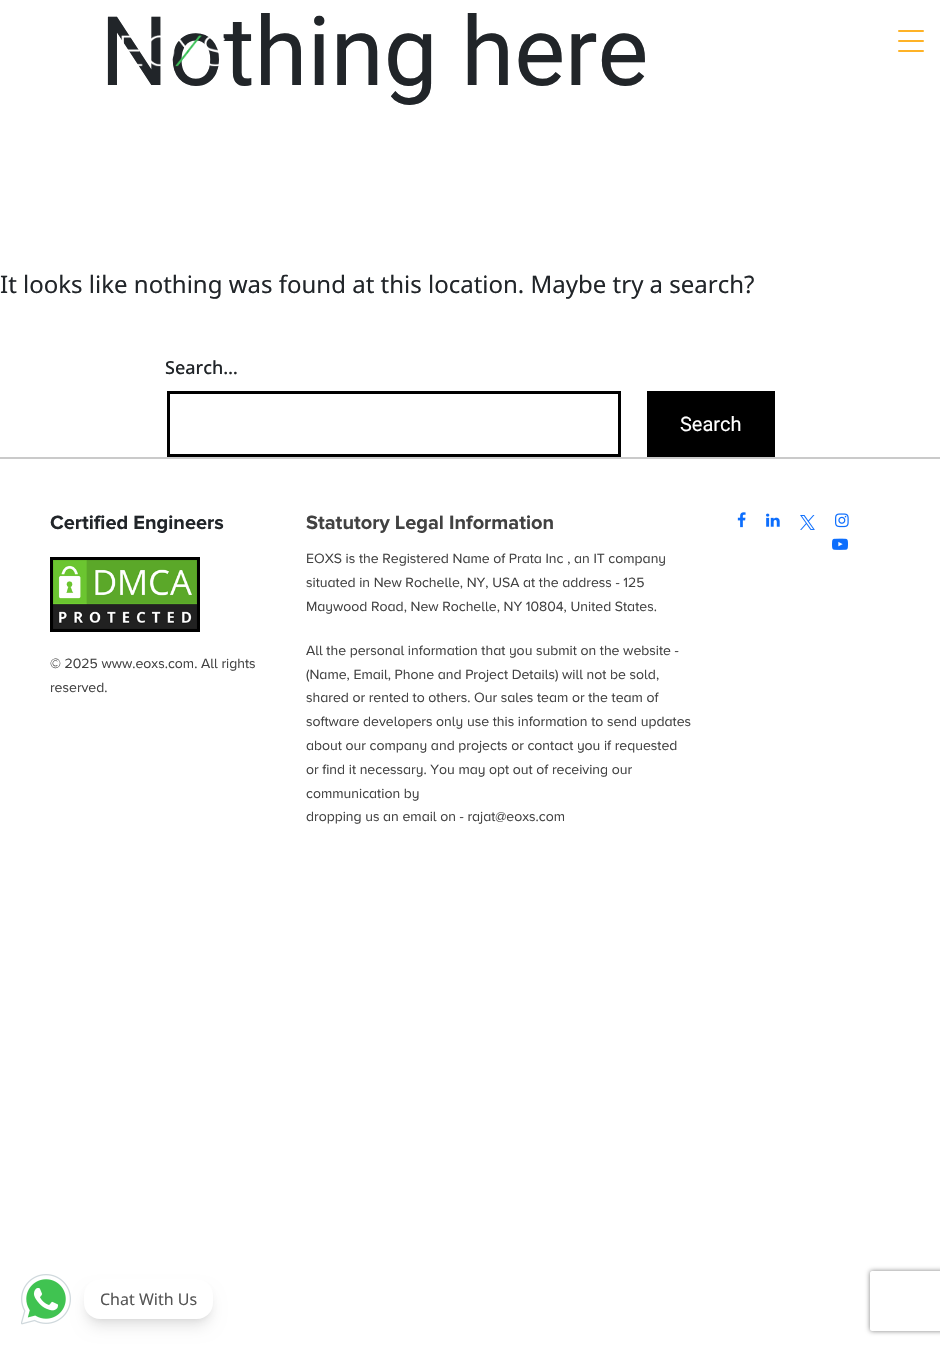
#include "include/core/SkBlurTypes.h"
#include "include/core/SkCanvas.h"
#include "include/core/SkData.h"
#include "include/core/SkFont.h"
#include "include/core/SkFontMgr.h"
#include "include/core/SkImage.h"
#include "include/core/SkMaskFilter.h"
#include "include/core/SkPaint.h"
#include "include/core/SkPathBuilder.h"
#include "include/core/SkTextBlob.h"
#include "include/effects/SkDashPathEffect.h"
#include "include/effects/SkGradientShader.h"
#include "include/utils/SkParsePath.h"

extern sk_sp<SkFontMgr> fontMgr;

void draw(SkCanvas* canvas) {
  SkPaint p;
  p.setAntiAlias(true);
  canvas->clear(SK_ColorWHITE);
  p.setStyle(SkPaint::kStroke_Style);
  p.setStrokeWidth(3);
  p.setColor(SK_ColorBLACK);
  canvas->drawRect(SkRect::MakeLTRB(168.5f, 392.5f, 619.5f, 455.5f), p);
  p.setStyle(SkPaint::kFill_Style);
  canvas->drawRect(SkRect::MakeLTRB(647, 391, 775, 457), p);
  p.setColor(SkColorSetRGB(202, 202, 202));
  canvas->drawRect(SkRect::MakeLTRB(0, 457, 940, 459), p);
  canvas->drawImageRect(SkImages::DeferredFromEncodedData(SkData::MakeFromFileName("images/2.png")), SkRect::MakeLTRB(50, 557, 200, 632), SkSamplingOptions());
  canvas->drawImageRect(SkImages::DeferredFromEncodedData(SkData::MakeFromFileName("images/3.png")), SkRect::MakeLTRB(737, 512, 746, 528), SkSamplingOptions());
  canvas->drawImageRect(SkImages::DeferredFromEncodedData(SkData::MakeFromFileName("images/4.png")), SkRect::MakeLTRB(766, 513, 780, 527), SkSamplingOptions());
  canvas->drawImageRect(SkImages::DeferredFromEncodedData(SkData::MakeFromFileName("images/5.png")), SkRect::MakeLTRB(800, 515, 815, 530), SkSamplingOptions());
  canvas->drawImageRect(SkImages::DeferredFromEncodedData(SkData::MakeFromFileName("images/6.png")), SkRect::MakeLTRB(835, 513, 849, 528), SkSamplingOptions());
  canvas->drawImageRect(SkImages::DeferredFromEncodedData(SkData::MakeFromFileName("images/7.png")), SkRect::MakeLTRB(832, 538, 848, 550), SkSamplingOptions());
  p.setColor(SkColorSetRGB(254, 178, 38));
  canvas->drawRoundRect(SkRect::MakeLTRB(898, 40, 924, 42), 1, 1, p);
  canvas->drawRoundRect(SkRect::MakeLTRB(898, 30, 924, 32), 1, 1, p);
  canvas->drawRoundRect(SkRect::MakeLTRB(898, 50, 924, 52), 1, 1, p);
  p.setColor(SkColorSetARGB(26, 0, 0, 0));
  p.setMaskFilter(SkMaskFilter::MakeBlur(kNormal_SkBlurStyle, 7.5f));
  canvas->drawRoundRect(SkRect::MakeLTRB(87, 1292, 210, 1326), 13, 13, p);
  p.setMaskFilter(nullptr);
  canvas->drawImageRect(SkImages::DeferredFromEncodedData(SkData::MakeFromFileName("images/8.png")), SkRect::MakeLTRB(21, 1274, 71, 1325), SkSamplingOptions());
  p.setMaskFilter(SkMaskFilter::MakeBlur(kNormal_SkBlurStyle, 3));
  canvas->drawRoundRect(SkRect::MakeLTRB(88, 1287, 209, 1319), 12, 12, p);
  p.setMaskFilter(nullptr);
  p.setColor(SK_ColorWHITE);
  canvas->drawRoundRect(SkRect::MakeLTRB(84, 1279, 213, 1319), 16, 16, p);
  canvas->save();
  canvas->clipPath(SkPathBuilder(SkPathFillType::kEvenOdd).moveTo(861, 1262).lineTo(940, 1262).lineTo(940, 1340).lineTo(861, 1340).close().moveTo(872, 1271).lineTo(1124, 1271).cubicTo(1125, 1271, 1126, 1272, 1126, 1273).lineTo(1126, 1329).cubicTo(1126, 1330, 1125, 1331, 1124, 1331).lineTo(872, 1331).cubicTo(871, 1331, 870, 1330, 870, 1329).lineTo(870, 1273).cubicTo(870, 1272, 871, 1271, 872, 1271).close().detach(), true);
  p.setColor(SkColorSetRGB(128, 128, 128));
  p.setMaskFilter(SkMaskFilter::MakeBlur(kNormal_SkBlurStyle, 2.5f));
  canvas->drawRoundRect(SkRect::MakeLTRB(870, 1271, 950, 1331), 2, 2, p);
  p.setMaskFilter(nullptr);
  canvas->restore();
  SkFont font1(fontMgr->matchFamilyStyle("Roboto", SkFontStyle::Normal()), 96);
  font1.setSubpixel(true);
  p.setColor(SkColorSetRGB(33, 37, 41));
  canvas->drawString("Nothing here", 100, 85, font1, p);
  SkFont font2(fontMgr->matchFamilyStyle("Noto Sans", SkFontStyle::Normal()), 24);
  font2.setSubpixel(true);
  canvas->drawString("It looks like nothing was found at this location. Maybe try a search?", 0, 293, font2, p);
  SkFont font3(fontMgr->matchFamilyStyle("Noto Sans", SkFontStyle(500, SkFontStyle::kNormal_Width, SkFontStyle::kUpright_Slant)), 18);
  font3.setSubpixel(true);
  canvas->drawString("Search…", 165, 374, font3, p);
  SkFont font4(fontMgr->matchFamilyStyle("Roboto", SkFontStyle::Normal()), 20);
  font4.setSubpixel(true);
  p.setColor(SK_ColorWHITE);
  canvas->drawString("Search", 680, 431, font4, p);
  canvas->drawImageRect(SkImages::DeferredFromEncodedData(SkData::MakeFromFileName("images/1.png")), SkRect::MakeLTRB(121, 35, 225, 67), SkSamplingOptions());
  SkFont font5(fontMgr->matchFamilyStyle("Proxima Nova", SkFontStyle::Bold()), 20);
  font5.setSubpixel(true);
  p.setColor(SkColorSetRGB(33, 37, 41));
  canvas->drawString("Certified Engineers", 50, 529, font5, p);
  SkFont font6(fontMgr->matchFamilyStyle("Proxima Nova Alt", SkFontStyle::Normal()), 14);
  font6.setSubpixel(true);
  p.setColor(SkColorSetRGB(66, 66, 66));
  canvas->drawString("© 2025 www.eoxs.com. All rights", 50, 668, font6, p);
  canvas->drawString("reserved.", 50, 692, font6, p);
  canvas->drawString("Statutory Legal Information", 306, 529, font5, p);
  canvas->drawString("EOXS is the Registered Name of Prata Inc , an IT company", 306, 563, font6, p);
  canvas->drawString("situated in New Rochelle, NY, USA at the address - 125", 306, 587, font6, p);
  canvas->drawString("Maywood Road, New Rochelle, NY 10804, United States.", 306, 611, font6, p);
  canvas->drawString("All the personal information that you submit on the website -", 306, 655, font6, p);
  canvas->drawString("(Name, Email, Phone and Project Details) will not be sold,", 306, 679, font6, p);
  canvas->drawString("shared or rented to others. Our sales team or the team of", 306, 702, font6, p);
  canvas->drawString("software developers only use this information to send updates", 306, 726, font6, p);
  canvas->drawString("about our company and projects or contact you if requested", 306, 750, font6, p);
  canvas->drawString("or find it necessary. You may opt out of receiving our", 306, 774, font6, p);
  canvas->drawString("communication by", 306, 798, font6, p);
  canvas->drawString("dropping us an email on - rajat@eoxs.com", 306, 821, font6, p);
  SkFont font7(fontMgr->matchFamilyStyle("Noto Sans", SkFontStyle::Normal()), 16);
  font7.setSubpixel(true);
  p.setColor(SkColorSetRGB(85, 85, 85));
  canvas->drawString("Chat With Us", 100, 1305, font7, p);
}
